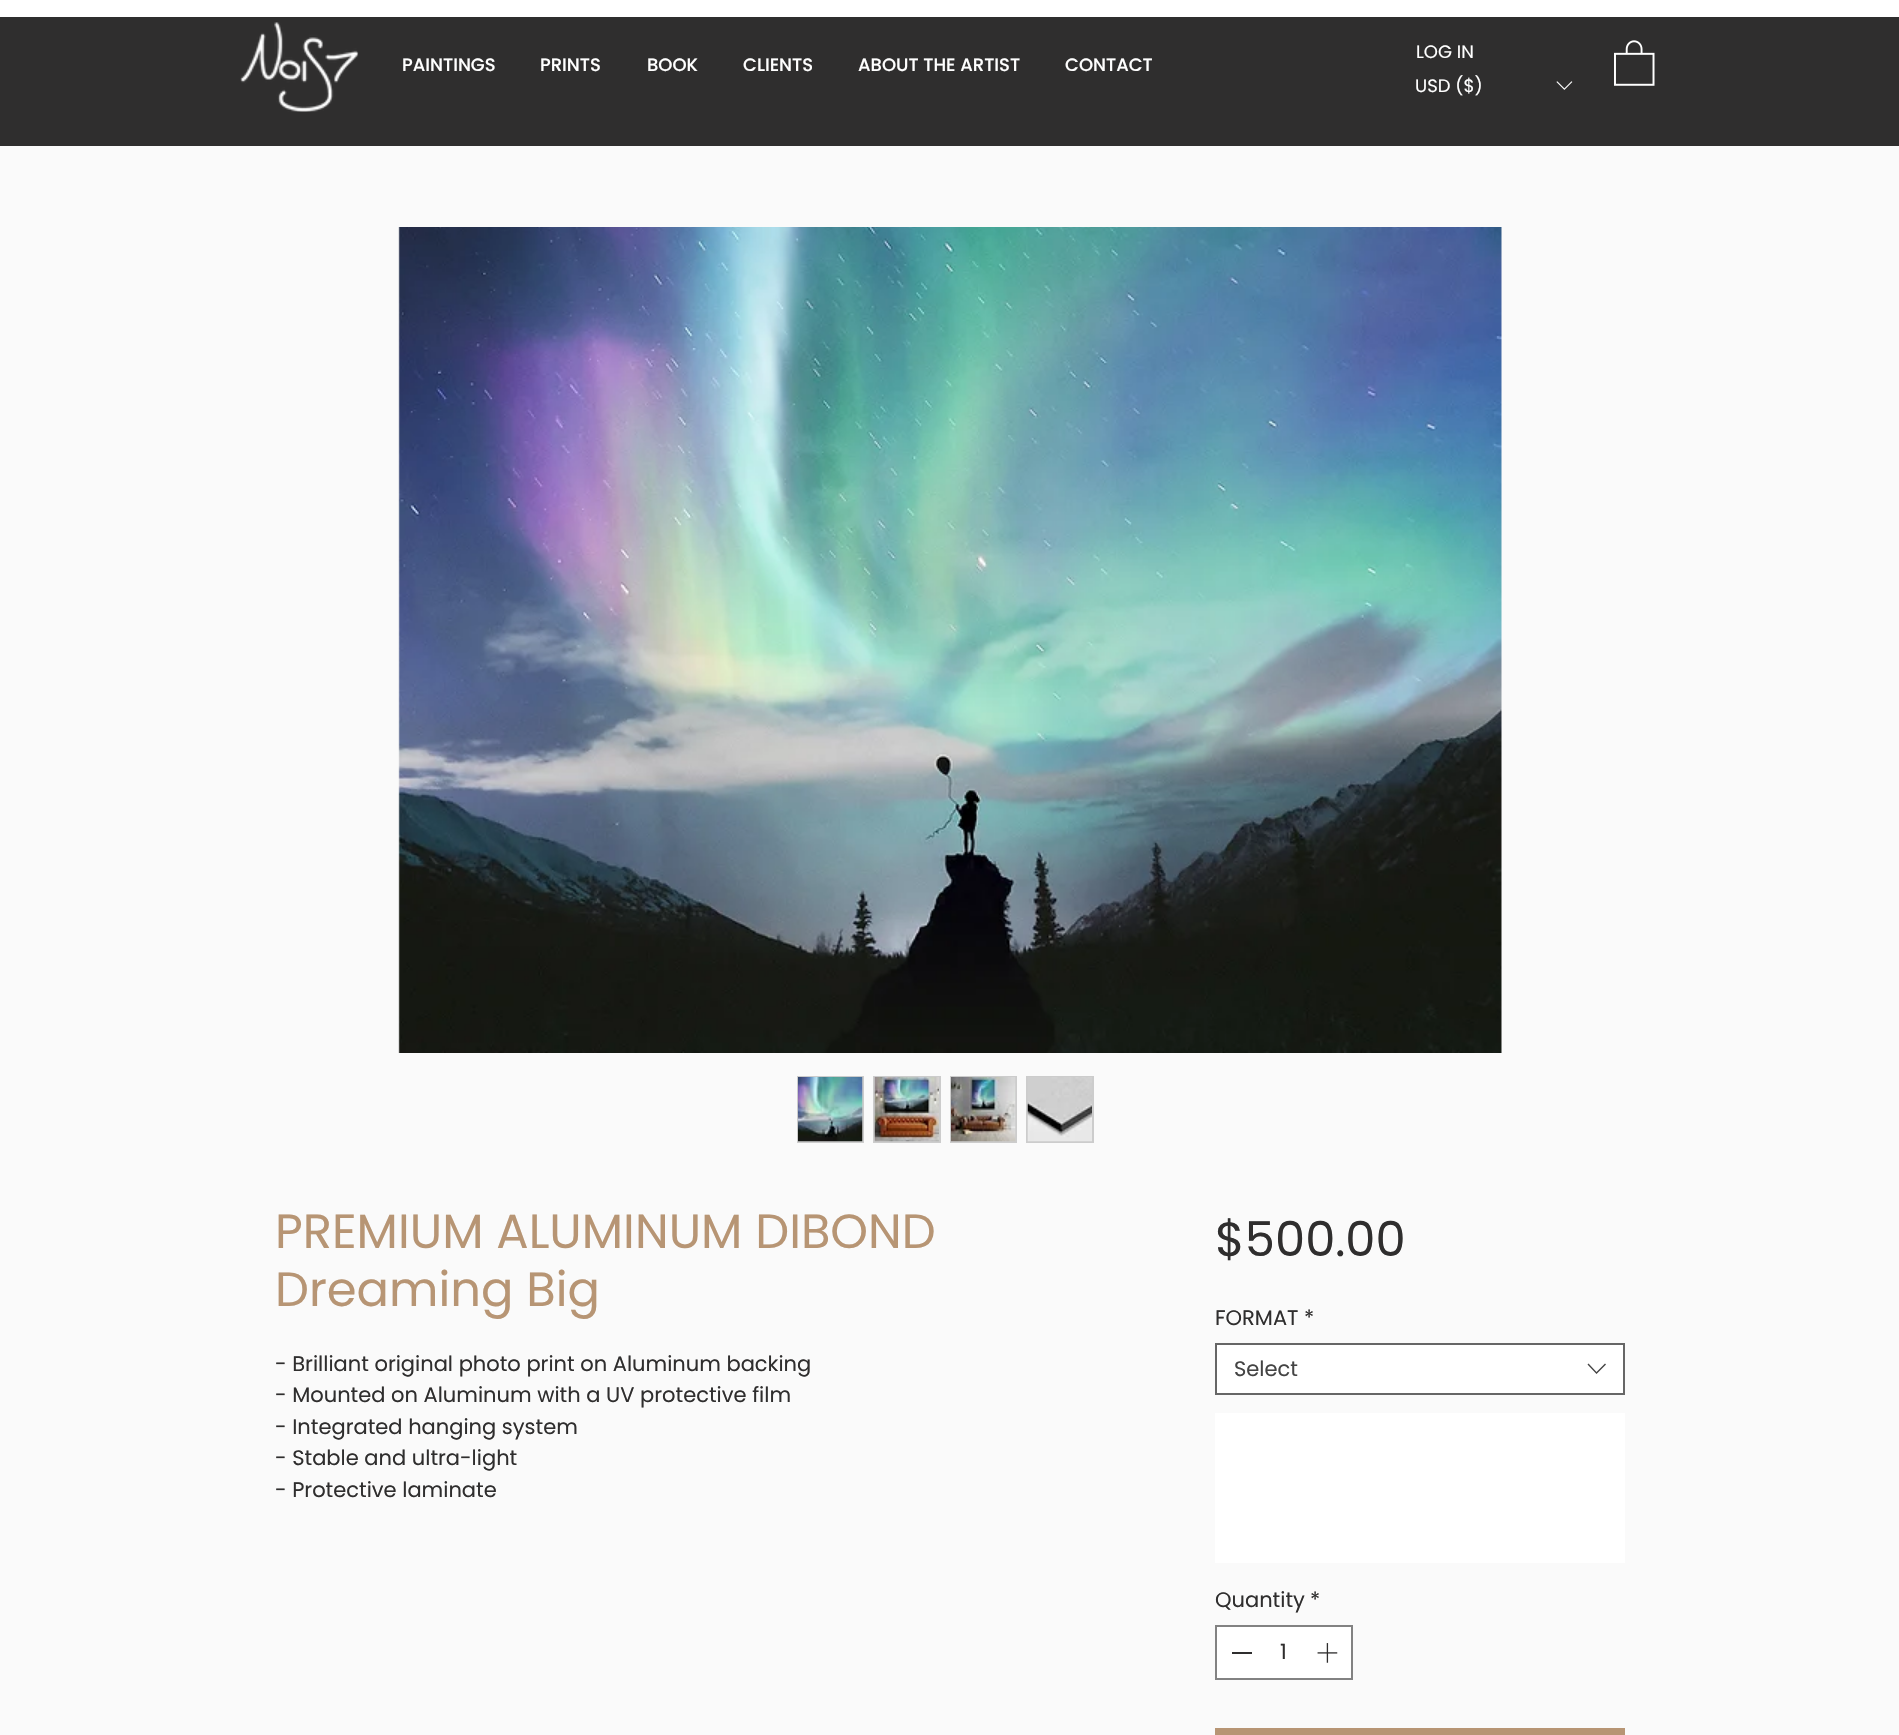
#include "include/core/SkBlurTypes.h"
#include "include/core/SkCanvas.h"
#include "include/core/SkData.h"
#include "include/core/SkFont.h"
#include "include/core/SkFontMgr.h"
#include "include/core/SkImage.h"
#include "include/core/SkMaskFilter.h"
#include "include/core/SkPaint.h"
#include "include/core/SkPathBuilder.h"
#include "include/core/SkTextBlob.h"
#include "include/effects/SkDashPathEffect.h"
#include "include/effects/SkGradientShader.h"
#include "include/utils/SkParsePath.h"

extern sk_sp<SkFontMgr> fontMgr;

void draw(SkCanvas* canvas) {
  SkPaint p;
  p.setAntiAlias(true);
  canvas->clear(SK_ColorWHITE);
  p.setColor(SkColorSetRGB(47, 46, 46));
  canvas->drawRect(SkRect::MakeLTRB(0, 17, 1899, 146), p);
  canvas->drawImageRect(SkImages::DeferredFromEncodedData(SkData::MakeFromFileName("images/1.png")), SkRect::MakeLTRB(240, 22, 359, 112), SkSamplingOptions());
  canvas->drawImageRect(SkImages::DeferredFromEncodedData(SkData::MakeFromFileName("images/2.png")), SkRect::MakeLTRB(1614, 40, 1655, 86), SkSamplingOptions());
  canvas->drawImageRect(SkImages::DeferredFromEncodedData(SkData::MakeFromFileName("images/3.png")), SkRect::MakeLTRB(1556, 81, 1573, 90), SkSamplingOptions());
  p.setColor(SkColorSetRGB(250, 250, 250));
  canvas->drawRect(SkRect::MakeLTRB(0, 146, 1899, 1735), p);
  canvas->drawImageRect(SkImages::DeferredFromEncodedData(SkData::MakeFromFileName("images/4.png")), SkRect::MakeLTRB(398, 227, 1502, 1053), SkSamplingOptions());
  p.setColor(SkColorSetRGB(204, 204, 204));
  canvas->drawRect(SkRect::MakeLTRB(797, 1076, 864, 1143), p);
  canvas->drawImageRect(SkImages::DeferredFromEncodedData(SkData::MakeFromFileName("images/5.png")), SkRect::MakeLTRB(798, 1077, 863, 1142), SkSamplingOptions());
  canvas->drawRect(SkRect::MakeLTRB(873, 1076, 941, 1143), p);
  canvas->drawImageRect(SkImages::DeferredFromEncodedData(SkData::MakeFromFileName("images/6.png")), SkRect::MakeLTRB(874, 1077, 939, 1142), SkSamplingOptions());
  canvas->drawRect(SkRect::MakeLTRB(950, 1076, 1017, 1143), p);
  canvas->drawImageRect(SkImages::DeferredFromEncodedData(SkData::MakeFromFileName("images/7.png")), SkRect::MakeLTRB(951, 1077, 1016, 1142), SkSamplingOptions());
  canvas->drawRect(SkRect::MakeLTRB(1026, 1076, 1094, 1143), p);
  canvas->drawImageRect(SkImages::DeferredFromEncodedData(SkData::MakeFromFileName("images/8.png")), SkRect::MakeLTRB(1027, 1077, 1092, 1142), SkSamplingOptions());
  p.setColor(SK_ColorWHITE);
  canvas->drawRect(SkRect::MakeLTRB(1216, 1344, 1624, 1394), p);
  p.setStyle(SkPaint::kStroke_Style);
  p.setStrokeWidth(2);
  p.setColor(SkColorSetRGB(102, 102, 102));
  canvas->drawRect(SkRect::MakeLTRB(1216, 1344, 1624, 1394), p);
  p.setStyle(SkPaint::kFill_Style);
  p.setColor(SkColorSetRGB(68, 68, 68));
  canvas->drawPath(SkPathBuilder(SkPathFillType::kEvenOdd).moveTo(1605, 1363.5f).lineTo(1606, 1364.5f).lineTo(1596.5f, 1374).lineTo(1587.5f, 1364.5f).lineTo(1588.5f, 1363.5f).lineTo(1596.5f, 1372).close().detach(), p);
  p.setColor(SK_ColorWHITE);
  canvas->drawRect(SkRect::MakeLTRB(1215, 1413, 1625, 1563), p);
  canvas->drawRect(SkRect::MakeLTRB(1216, 1626, 1352, 1679), p);
  p.setStyle(SkPaint::kStroke_Style);
  p.setColor(SkColorSetRGB(130, 130, 130));
  canvas->drawRect(SkRect::MakeLTRB(1216, 1626, 1352, 1679), p);
  p.setStyle(SkPaint::kFill_Style);
  p.setColor(SkColorSetRGB(47, 46, 46));
  canvas->drawRect(SkRect::MakeLTRB(1232, 1652, 1252, 1654), p);
  canvas->drawImageRect(SkImages::DeferredFromEncodedData(SkData::MakeFromFileName("images/9.png")), SkRect::MakeLTRB(1317, 1643, 1338, 1663), SkSamplingOptions());
  p.setColor(SkColorSetRGB(183, 149, 116));
  canvas->drawRect(SkRect::MakeLTRB(1215, 1728, 1625, 1735), p);
  SkFont font1(fontMgr->matchFamilyStyle("Poppins", SkFontStyle::Normal()), 18);
  font1.setSubpixel(true);
  p.setColor(SK_ColorWHITE);
  canvas->drawString("LOG IN", 1416, 58, font1, p);
  SkFont font2(fontMgr->matchFamilyStyle("Poppins", SkFontStyle(500, SkFontStyle::kNormal_Width, SkFontStyle::kUpright_Slant)), 18);
  font2.setSubpixel(true);
  canvas->drawString("PAINTINGS", 402, 71, font2, p);
  canvas->drawString("PRINTS", 540, 71, font2, p);
  canvas->drawString("BOOK", 647, 71, font2, p);
  canvas->drawString("CLIENTS", 743, 71, font2, p);
  canvas->drawString("ABOUT THE ARTIST", 858, 71, font2, p);
  canvas->drawString("CONTACT", 1065, 71, font2, p);
  canvas->drawString("USD ($)", 1415, 92, font1, p);
  SkFont font3(fontMgr->matchFamilyStyle("Poppins", SkFontStyle::Normal()), 48);
  font3.setSubpixel(true);
  p.setColor(SkColorSetRGB(183, 149, 116));
  canvas->drawString("PREMIUM ALUMINUM DIBOND", 275, 1248, font3, p);
  canvas->drawString("Dreaming Big", 275, 1306, font3, p);
  SkFont font4(fontMgr->matchFamilyStyle("Poppins", SkFontStyle::Normal()), 21);
  font4.setSubpixel(true);
  p.setColor(SkColorSetRGB(47, 46, 46));
  canvas->drawString("- Brilliant original photo print on Aluminum backing", 275, 1371, font4, p);
  canvas->drawString("- Mounted on Aluminum with a UV protective film", 275, 1402, font4, p);
  canvas->drawString("- Integrated hanging system", 275, 1434, font4, p);
  canvas->drawString("- Stable and ultra-light", 275, 1465, font4, p);
  canvas->drawString("- Protective laminate", 275, 1497, font4, p);
  canvas->drawString("$500.00", 1215, 1256, font3, p);
  canvas->drawString("FORMAT", 1215, 1325, font4, p);
  canvas->drawString("*", 1304, 1325, font4, p);
  p.setColor(SkColorSetRGB(68, 68, 68));
  canvas->drawString("Select", 1234, 1376, font4, p);
  p.setColor(SkColorSetRGB(47, 46, 46));
  canvas->drawString("Quantity", 1215, 1607, font4, p);
  canvas->drawString("*", 1310, 1607, font4, p);
  canvas->drawString("1", 1280, 1659, font4, p);
}
